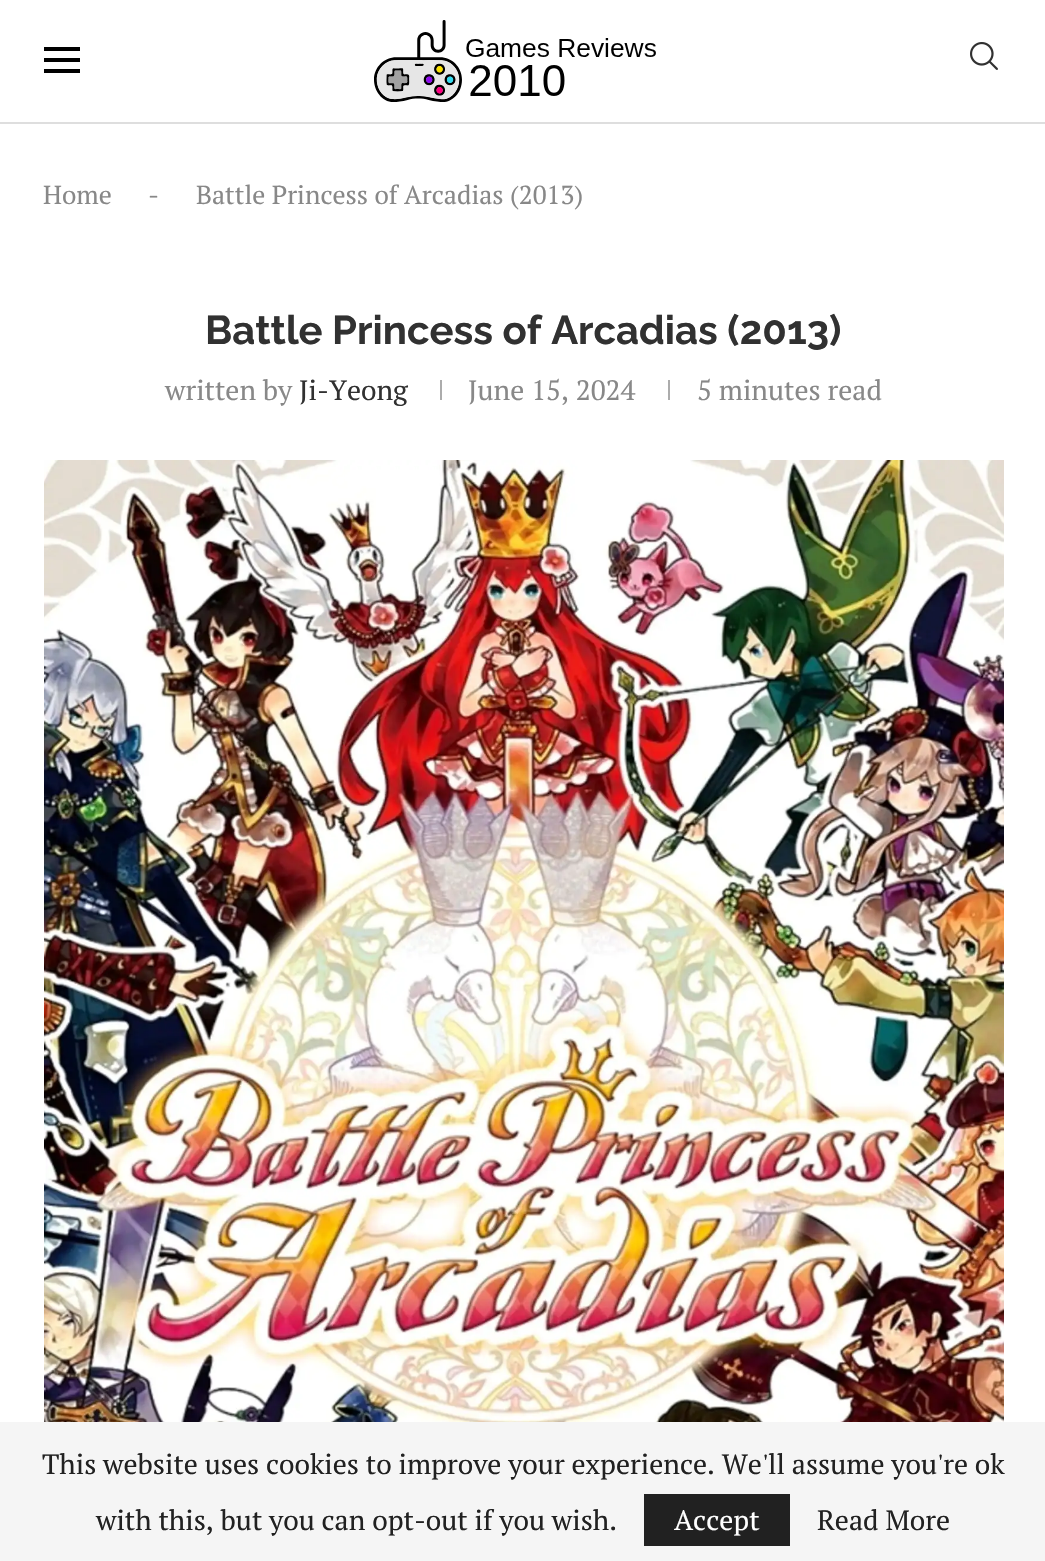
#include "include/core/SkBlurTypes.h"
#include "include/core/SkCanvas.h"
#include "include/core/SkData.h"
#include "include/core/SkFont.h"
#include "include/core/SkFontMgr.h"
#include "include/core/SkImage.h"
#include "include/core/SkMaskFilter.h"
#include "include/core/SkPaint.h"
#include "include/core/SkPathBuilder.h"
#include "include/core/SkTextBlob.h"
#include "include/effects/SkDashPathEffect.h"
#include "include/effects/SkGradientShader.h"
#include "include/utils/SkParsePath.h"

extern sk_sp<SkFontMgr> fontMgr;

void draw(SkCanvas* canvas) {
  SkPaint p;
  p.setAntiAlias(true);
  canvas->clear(SK_ColorWHITE);
  p.setColor(SkColorSetRGB(222, 222, 222));
  canvas->drawRect(SkRect::MakeLTRB(0, 122, 1045, 124), p);
  p.setColor(SK_ColorBLACK);
  canvas->drawRect(SkRect::MakeLTRB(44, 47, 80, 51), p);
  canvas->drawRect(SkRect::MakeLTRB(44, 58, 80, 62), p);
  canvas->drawRect(SkRect::MakeLTRB(44, 69, 80, 73), p);
  canvas->drawImageRect(SkImages::DeferredFromEncodedData(SkData::MakeFromFileName("images/1.png")), SkRect::MakeLTRB(374, 20, 656, 102), SkSamplingOptions());
  canvas->drawImageRect(SkImages::DeferredFromEncodedData(SkData::MakeFromFileName("images/2.png")), SkRect::MakeLTRB(970, 42, 998, 70), SkSamplingOptions());
  p.setColor(SkColorSetRGB(172, 172, 172));
  canvas->drawRect(SkRect::MakeLTRB(440, 380, 442, 400), p);
  canvas->drawRect(SkRect::MakeLTRB(668, 380, 670, 400), p);
  canvas->drawImageRect(SkImages::DeferredFromEncodedData(SkData::MakeFromFileName("images/3.png")), SkRect::MakeLTRB(44, 460, 1004, 1422), SkSamplingOptions());
  p.setColor(SkColorSetRGB(245, 245, 245));
  canvas->drawRect(SkRect::MakeLTRB(0, 1422, 1045, 1561), p);
  p.setColor(SkColorSetRGB(33, 33, 33));
  canvas->drawRect(SkRect::MakeLTRB(644, 1494, 790, 1546), p);
  SkFont font1(fontMgr->matchFamilyStyle("PT Serif", SkFontStyle::Normal()), 26);
  font1.setSubpixel(true);
  p.setColor(SkColorSetRGB(136, 136, 136));
  canvas->drawString("Home", 43, 204, font1, p);
  canvas->drawString("-", 148, 204, font1, p);
  canvas->drawString("Battle Princess of Arcadias (2013)", 196, 204, font1, p);
  SkFont font2(fontMgr->matchFamilyStyle("Raleway", SkFontStyle::Bold()), 40);
  font2.setSubpixel(true);
  p.setColor(SkColorSetRGB(49, 49, 49));
  canvas->drawString("Battle Princess of Arcadias (2013)", 205, 344, font2, p);
  SkFont font3(fontMgr->matchFamilyStyle("PT Serif", SkFontStyle::Normal()), 28);
  font3.setSubpixel(true);
  p.setColor(SkColorSetRGB(136, 136, 136));
  canvas->drawString("written by", 165, 400, font3, p);
  p.setColor(SkColorSetRGB(49, 49, 49));
  canvas->drawString("Ji-Yeong", 299, 400, font3, p);
  p.setColor(SkColorSetRGB(136, 136, 136));
  canvas->drawString("June 15, 2024", 468, 400, font3, p);
  canvas->drawString("5 minutes read", 697, 400, font3, p);
  p.setColor(SkColorSetRGB(33, 33, 33));
  canvas->drawString("This website uses cookies to improve your experience. We'll assume you're ok", 42, 1474, font3, p);
  canvas->drawString("with this, but you can opt-out if you wish.", 96, 1530, font3, p);
  p.setColor(SK_ColorWHITE);
  canvas->drawString("Accept", 674, 1530, font3, p);
  p.setColor(SkColorSetRGB(33, 33, 33));
  canvas->drawString("Read More", 817, 1530, font3, p);
}
